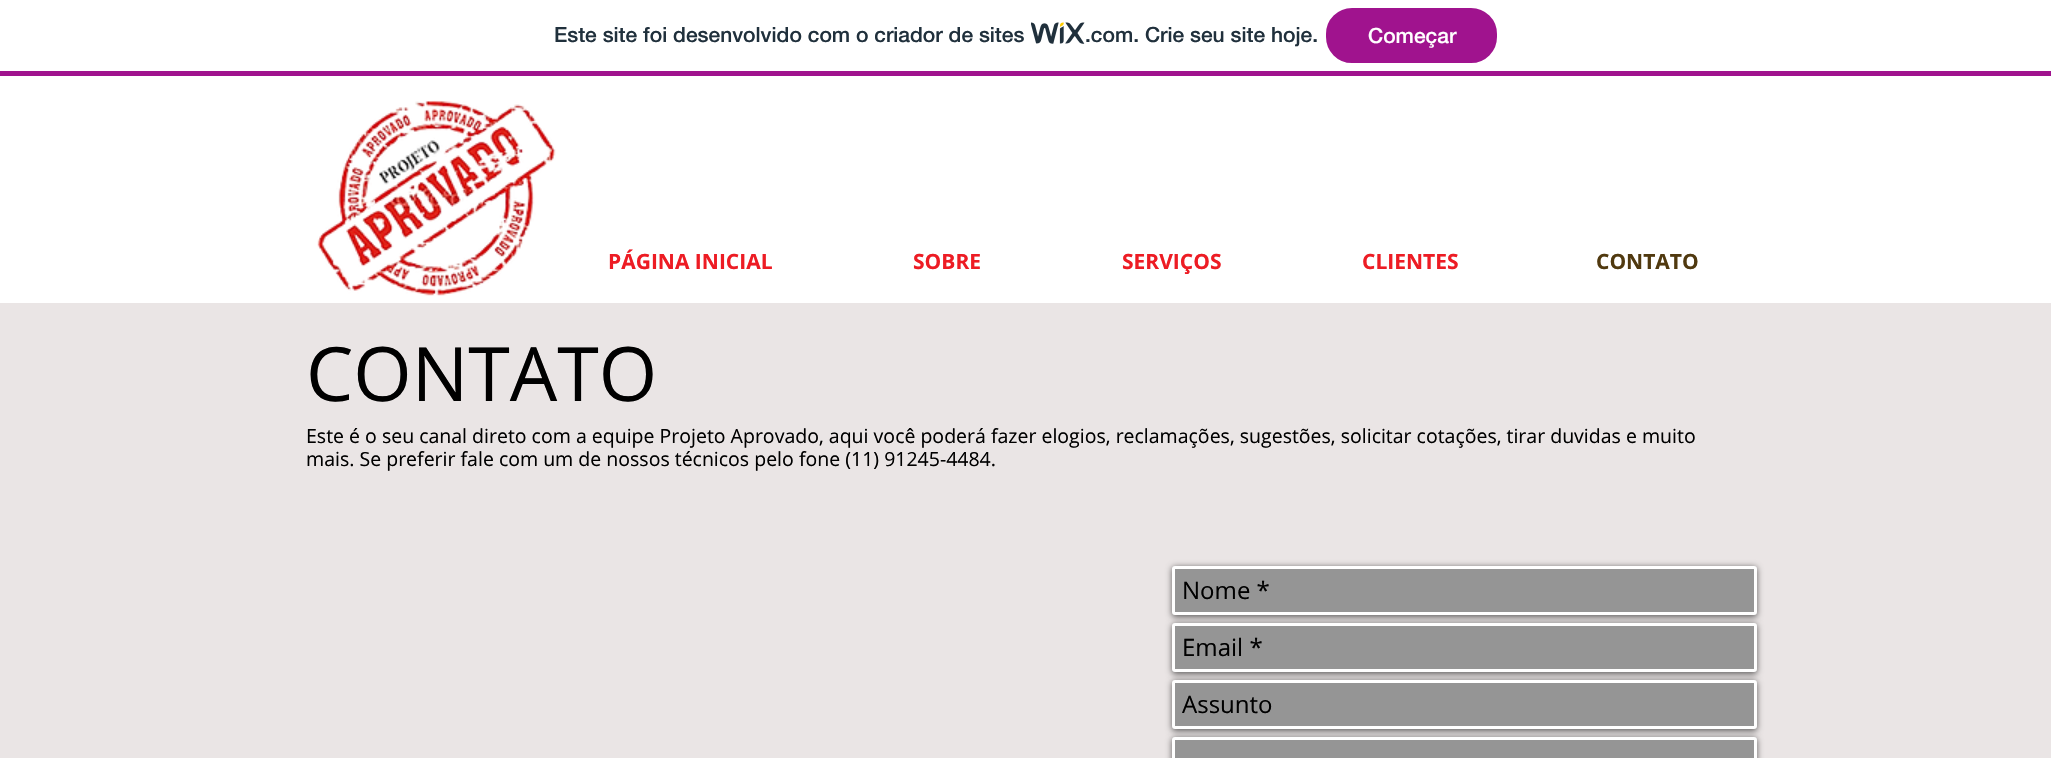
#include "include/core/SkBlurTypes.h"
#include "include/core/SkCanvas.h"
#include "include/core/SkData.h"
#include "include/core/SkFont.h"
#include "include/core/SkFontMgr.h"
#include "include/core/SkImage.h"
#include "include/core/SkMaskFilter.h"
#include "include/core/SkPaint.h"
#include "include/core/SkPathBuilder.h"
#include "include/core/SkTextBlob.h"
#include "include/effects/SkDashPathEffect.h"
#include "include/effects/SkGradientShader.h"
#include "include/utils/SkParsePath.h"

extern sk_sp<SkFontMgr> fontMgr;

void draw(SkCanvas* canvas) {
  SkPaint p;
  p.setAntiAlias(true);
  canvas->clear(SK_ColorWHITE);
  p.setColor(SkColorSetRGB(160, 19, 142));
  canvas->drawRect(SkRect::MakeLTRB(0, 71, 2051, 76), p);
  canvas->drawImageRect(SkImages::DeferredFromEncodedData(SkData::MakeFromFileName("images/1.png")), SkRect::MakeLTRB(1031, 22, 1085, 44), SkSamplingOptions());
  canvas->drawRoundRect(SkRect::MakeLTRB(1327, 9, 1496, 62), 25, 25, p);
  p.setStyle(SkPaint::kStroke_Style);
  p.setStrokeWidth(2);
  canvas->drawRoundRect(SkRect::MakeLTRB(1327, 9, 1496, 62), 25, 25, p);
  canvas->drawImageRect(SkImages::DeferredFromEncodedData(SkData::MakeFromFileName("images/2.png")), SkRect::MakeLTRB(317, 100, 556, 296), SkSamplingOptions());
  p.setStyle(SkPaint::kFill_Style);
  p.setColor(SkColorSetRGB(234, 229, 229));
  canvas->drawRect(SkRect::MakeLTRB(0, 303, 2051, 758), p);
  p.setColor(SkColorSetARGB(153, 0, 0, 0));
  p.setMaskFilter(SkMaskFilter::MakeBlur(kNormal_SkBlurStyle, 3));
  canvas->drawRoundRect(SkRect::MakeLTRB(1172, 567, 1757, 617), 3, 3, p);
  p.setMaskFilter(nullptr);
  p.setColor(SkColorSetRGB(149, 149, 149));
  canvas->drawRoundRect(SkRect::MakeLTRB(1173.5f, 567.5f, 1755.5f, 613.5f), 1.5f, 1.5f, p);
  p.setStyle(SkPaint::kStroke_Style);
  p.setStrokeWidth(3);
  p.setColor(SK_ColorWHITE);
  canvas->drawRoundRect(SkRect::MakeLTRB(1173.5f, 567.5f, 1755.5f, 613.5f), 1.5f, 1.5f, p);
  p.setStyle(SkPaint::kFill_Style);
  p.setColor(SkColorSetARGB(153, 0, 0, 0));
  p.setMaskFilter(SkMaskFilter::MakeBlur(kNormal_SkBlurStyle, 3));
  canvas->drawRoundRect(SkRect::MakeLTRB(1172, 624, 1757, 674), 3, 3, p);
  p.setMaskFilter(nullptr);
  p.setColor(SkColorSetRGB(149, 149, 149));
  canvas->drawRoundRect(SkRect::MakeLTRB(1173.5f, 624.5f, 1755.5f, 670.5f), 1.5f, 1.5f, p);
  p.setStyle(SkPaint::kStroke_Style);
  p.setColor(SK_ColorWHITE);
  canvas->drawRoundRect(SkRect::MakeLTRB(1173.5f, 624.5f, 1755.5f, 670.5f), 1.5f, 1.5f, p);
  p.setStyle(SkPaint::kFill_Style);
  p.setColor(SkColorSetARGB(153, 0, 0, 0));
  p.setMaskFilter(SkMaskFilter::MakeBlur(kNormal_SkBlurStyle, 3));
  canvas->drawRoundRect(SkRect::MakeLTRB(1172, 681, 1757, 731), 3, 3, p);
  p.setMaskFilter(nullptr);
  p.setColor(SkColorSetRGB(149, 149, 149));
  canvas->drawRoundRect(SkRect::MakeLTRB(1173.5f, 681.5f, 1755.5f, 727.5f), 1.5f, 1.5f, p);
  p.setStyle(SkPaint::kStroke_Style);
  p.setColor(SK_ColorWHITE);
  canvas->drawRoundRect(SkRect::MakeLTRB(1173.5f, 681.5f, 1755.5f, 727.5f), 1.5f, 1.5f, p);
  p.setStyle(SkPaint::kFill_Style);
  p.setColor(SkColorSetARGB(153, 0, 0, 0));
  p.setMaskFilter(SkMaskFilter::MakeBlur(kNormal_SkBlurStyle, 3));
  canvas->drawRoundRect(SkRect::MakeLTRB(1172, 738, 1757, 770), 3, 3, p);
  p.setMaskFilter(nullptr);
  p.setColor(SkColorSetRGB(149, 149, 149));
  canvas->drawRoundRect(SkRect::MakeLTRB(1173.5f, 738.5f, 1755.5f, 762.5f), 1.5f, 1.5f, p);
  p.setStyle(SkPaint::kStroke_Style);
  p.setColor(SK_ColorWHITE);
  canvas->drawRoundRect(SkRect::MakeLTRB(1173.5f, 738.5f, 1755.5f, 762.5f), 1.5f, 1.5f, p);
  SkFont font1(fontMgr->matchFamilyStyle("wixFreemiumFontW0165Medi", SkFontStyle(500, SkFontStyle::kNormal_Width, SkFontStyle::kUpright_Slant)), 21);
  font1.setSubpixel(true);
  p.setStyle(SkPaint::kFill_Style);
  p.setColor(SkColorSetRGB(32, 48, 60));
  canvas->drawString("Este site foi desenvolvido com o criador de sites", 554, 42, font1, p);
  canvas->drawString(".com. Crie seu site hoje.", 1085, 42, font1, p);
  p.setColor(SK_ColorWHITE);
  canvas->drawString("Começar", 1368, 43, font1, p);
  SkFont font2(fontMgr->matchFamilyStyle("Open Sans", SkFontStyle::Bold()), 21);
  font2.setSubpixel(true);
  p.setColor(SkColorSetRGB(237, 28, 36));
  canvas->drawString("PÁGINA INICIAL", 608, 269, font2, p);
  canvas->drawString("SOBRE", 913, 269, font2, p);
  canvas->drawString("SERVIÇOS", 1122, 269, font2, p);
  canvas->drawString("CLIENTES", 1362, 269, font2, p);
  p.setColor(SkColorSetRGB(80, 57, 15));
  canvas->drawString("CONTATO", 1596, 269, font2, p);
  SkFont font3(fontMgr->matchFamilyStyle("Open Sans", SkFontStyle::Normal()), 75);
  font3.setSubpixel(true);
  p.setColor(SK_ColorBLACK);
  canvas->drawString("CONTATO", 306, 401, font3, p);
  SkFont font4(fontMgr->matchFamilyStyle("Open Sans", SkFontStyle::Normal()), 19.5f);
  font4.setSubpixel(true);
  canvas->drawString("Este é o seu canal direto com a equipe Projeto Aprovado, aqui você poderá fazer elogios, reclamações, sugestões, solicitar cotações, tirar duvidas e muito", 306, 443, font4, p);
  canvas->drawString("mais. Se preferir fale com um de nossos técnicos pelo fone (11) 91245-4484.", 306, 466, font4, p);
  SkFont font5(fontMgr->matchFamilyStyle("Open Sans", SkFontStyle::Normal()), 24);
  font5.setSubpixel(true);
  canvas->drawString("Nome *", 1182, 599, font5, p);
  canvas->drawString("Email *", 1182, 656, font5, p);
  canvas->drawString("Assunto", 1182, 713, font5, p);
}
